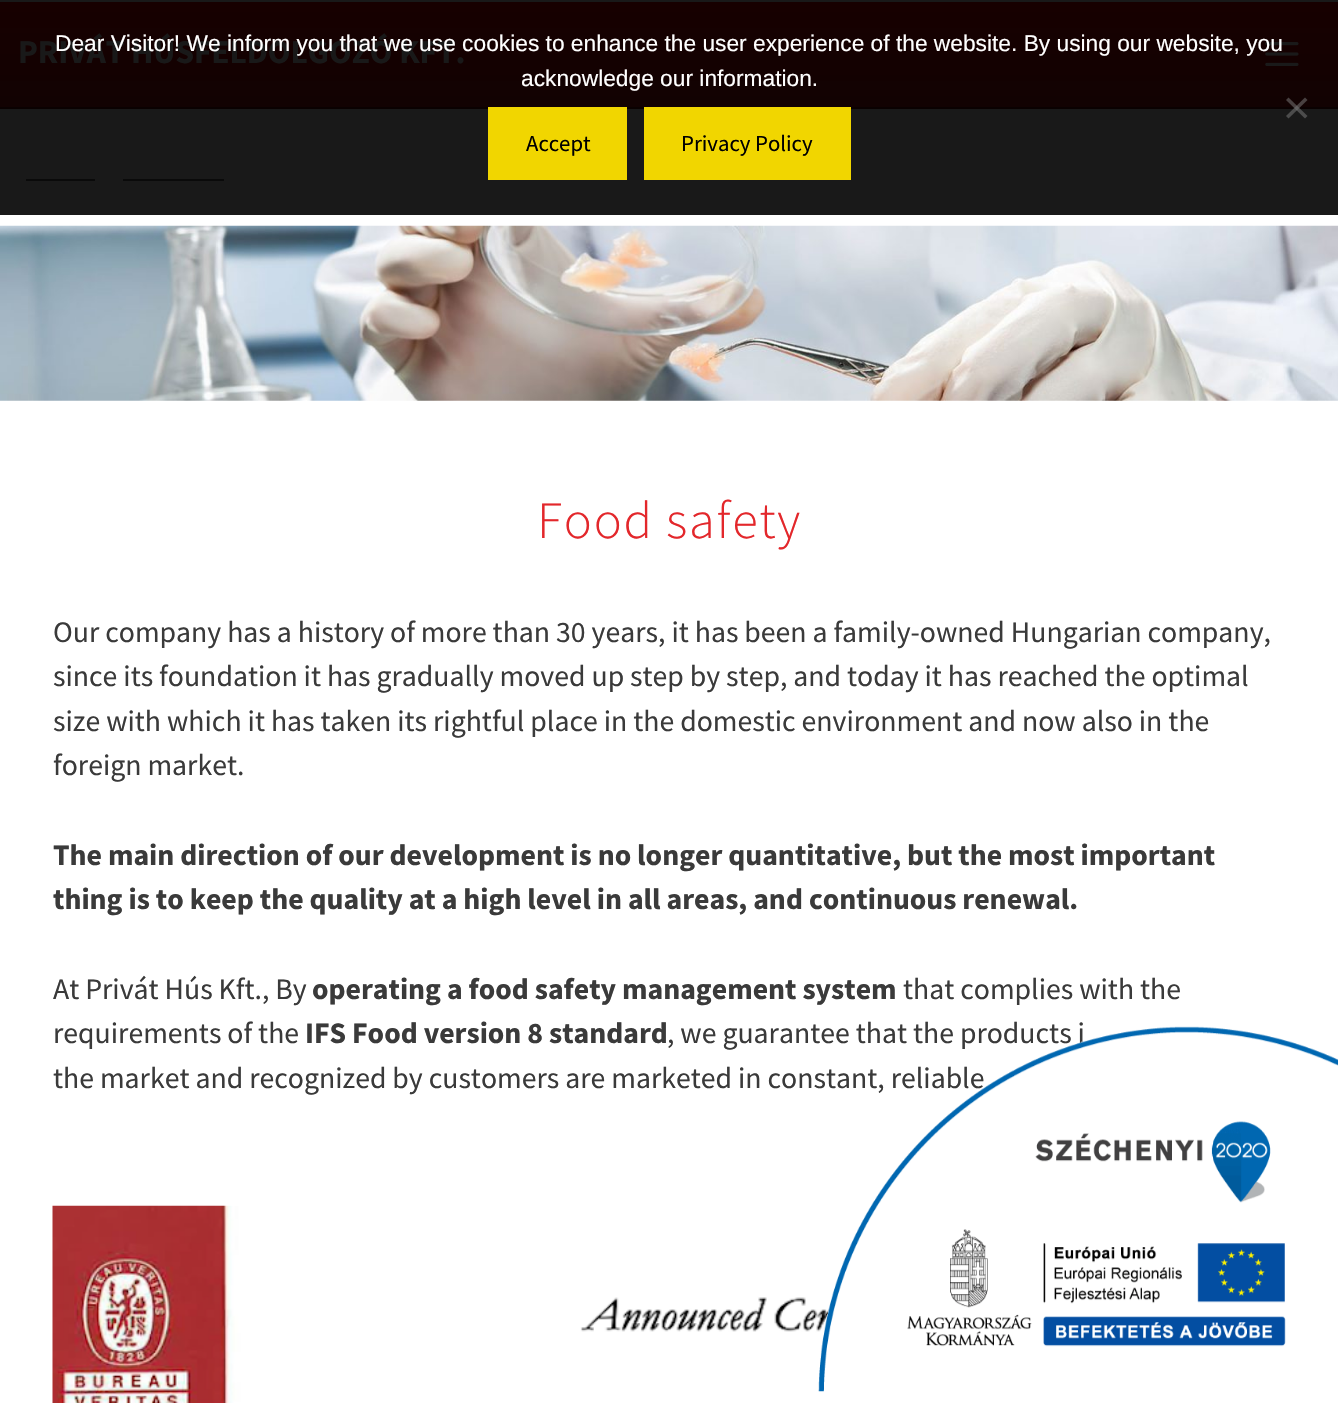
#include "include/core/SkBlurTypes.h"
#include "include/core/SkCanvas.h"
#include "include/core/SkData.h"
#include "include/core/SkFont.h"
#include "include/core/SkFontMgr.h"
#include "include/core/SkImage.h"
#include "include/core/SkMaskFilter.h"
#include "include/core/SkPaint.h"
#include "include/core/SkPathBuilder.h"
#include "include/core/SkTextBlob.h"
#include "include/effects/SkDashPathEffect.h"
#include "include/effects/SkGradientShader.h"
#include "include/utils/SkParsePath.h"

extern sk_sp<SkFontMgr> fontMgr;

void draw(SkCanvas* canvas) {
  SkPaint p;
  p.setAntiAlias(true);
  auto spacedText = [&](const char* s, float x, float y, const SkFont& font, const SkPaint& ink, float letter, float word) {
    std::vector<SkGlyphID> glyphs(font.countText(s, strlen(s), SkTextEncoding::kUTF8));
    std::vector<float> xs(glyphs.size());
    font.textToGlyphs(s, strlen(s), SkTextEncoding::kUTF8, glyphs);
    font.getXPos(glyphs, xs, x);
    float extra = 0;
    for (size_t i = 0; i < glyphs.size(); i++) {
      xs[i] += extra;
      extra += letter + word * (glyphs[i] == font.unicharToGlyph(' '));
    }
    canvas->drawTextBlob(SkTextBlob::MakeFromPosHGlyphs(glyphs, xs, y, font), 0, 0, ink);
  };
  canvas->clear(SK_ColorWHITE);
  p.setColor(SkColorSetRGB(25, 25, 25));
  canvas->drawRect(SkRect::MakeLTRB(0, 0, 1338, 215), p);
  {
    const SkColor colors[] = {SkColorSetRGB(23, 0, 0), SkColorSetRGB(18, 2, 2)};
    const float stops[] = {0, 1};
    const SkPoint ends[] = {{669, 1.7f}, {669, 107}};
    p.setShader(SkGradientShader::MakeLinear(ends, colors, stops, 2, SkTileMode::kClamp));
    p.setAlpha(255);
  }
  canvas->drawRect(SkRect::MakeLTRB(0, 2, 1338, 107), p);
  p.setShader(nullptr);
  p.setColor(SkColorSetRGB(10, 1, 1));
  canvas->drawRect(SkRect::MakeLTRB(0, 107, 1338, 109), p);
  canvas->drawImageRect(SkImages::DeferredFromEncodedData(SkData::MakeFromFileName("images/1.png")), SkRect::MakeLTRB(1265, 42, 1299, 66), SkSamplingOptions());
  p.setColor(SkColorSetARGB(128, 128, 128, 128));
  canvas->drawPath(SkPathBuilder().moveTo(1305, 97.5f).lineTo(1307.5f, 100).lineTo(1288.5f, 118.5f).lineTo(1286, 116).close().detach(), p);
  canvas->drawPath(SkPathBuilder().moveTo(1286, 100).lineTo(1288.5f, 97.5f).lineTo(1307.5f, 116).lineTo(1305, 118.5f).close().detach(), p);
  p.setColor(SkColorSetRGB(241, 214, 0));
  canvas->drawRect(SkRect::MakeLTRB(488, 107, 627, 180), p);
  canvas->drawRect(SkRect::MakeLTRB(644, 107, 851, 180), p);
  p.setColor(SkColorSetRGB(10, 10, 10));
  canvas->drawRect(SkRect::MakeLTRB(26, 179, 95, 181), p);
  canvas->drawRect(SkRect::MakeLTRB(123, 179, 224, 181), p);
  canvas->drawImageRect(SkImages::DeferredFromEncodedData(SkData::MakeFromFileName("images/2.png")), SkRect::MakeLTRB(0, 225, 1338, 401), SkSamplingOptions());
  canvas->drawImageRect(SkImages::DeferredFromEncodedData(SkData::MakeFromFileName("images/3.png")), SkRect::MakeLTRB(52, 1205, 932, 1403), SkSamplingOptions());
  SkFont font1(fontMgr->matchFamilyStyle("Source Sans Pro", SkFontStyle::Bold()), 33.25f);
  font1.setSubpixel(true);
  p.setColor(SkColorSetRGB(25, 25, 25));
  canvas->drawString("PRIVÁT HÚSFELDOLGOZÓ KFT.", 18, 63, font1, p);
  SkFont font2(fontMgr->matchFamilyStyle("Liberation Sans", SkFontStyle::Normal()), 22.75f);
  font2.setSubpixel(true);
  p.setColor(SK_ColorWHITE);
  canvas->drawString("Dear Visitor! We inform you that we use cookies to enhance the user experience of the website. By using our website, you", 55, 51, font2, p);
  canvas->drawString("acknowledge our information.", 521, 86, font2, p);
  SkFont font3(fontMgr->matchFamilyStyle("Source Sans Pro", SkFontStyle::Normal()), 22.75f);
  font3.setSubpixel(true);
  p.setColor(SK_ColorBLACK);
  canvas->drawString("Accept", 526, 151, font3, p);
  canvas->drawString("Privacy Policy", 681, 151, font3, p);
  SkFont font4(fontMgr->matchFamilyStyle("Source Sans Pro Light", SkFontStyle(300, SkFontStyle::kNormal_Width, SkFontStyle::kUpright_Slant)), 52.5f);
  font4.setSubpixel(true);
  p.setColor(SkColorSetRGB(227, 39, 43));
  spacedText("Food safety", 537, 538, font4, p, 1.75f, 0);
  SkFont font5(fontMgr->matchFamilyStyle("Source Sans Pro", SkFontStyle::Normal()), 29.75f);
  font5.setSubpixel(true);
  p.setColor(SkColorSetRGB(58, 58, 58));
  canvas->drawString("Our company has a history of more than 30 years, it has been a family-owned Hungarian company,", 53, 642, font5, p);
  canvas->drawString("since its foundation it has gradually moved up step by step, and today it has reached the optimal", 53, 686, font5, p);
  canvas->drawString("size with which it has taken its rightful place in the domestic environment and now also in the", 53, 731, font5, p);
  canvas->drawString("foreign market.", 53, 775, font5, p);
  SkFont font6(fontMgr->matchFamilyStyle("Source Sans Pro", SkFontStyle::Bold()), 29.75f);
  font6.setSubpixel(true);
  canvas->drawString("The main direction of our development is no longer quantitative, but the most important", 53, 865, font6, p);
  canvas->drawString("thing is to keep the quality at a high level in all areas, and continuous renewal.", 53, 909, font6, p);
  canvas->drawString("At Privát Hús Kft., By", 53, 999, font5, p);
  canvas->drawString("operating a food safety management system", 312, 999, font6, p);
  canvas->drawString("that complies with the", 903, 999, font5, p);
  canvas->drawString("requirements of the", 53, 1043, font5, p);
  canvas->drawString("IFS Food version 8 standard", 305, 1043, font6, p);
  canvas->drawString(", we guarantee that the products i", 667, 1043, font5, p);
  canvas->drawString("the market and recognized by customers are marketed in constant, reliable", 53, 1088, font5, p);
  canvas->drawImageRect(SkImages::DeferredFromEncodedData(SkData::MakeFromFileName("images/4.png")), SkRect::MakeLTRB(818, 1026, 1338, 1392), SkSamplingOptions());
}
